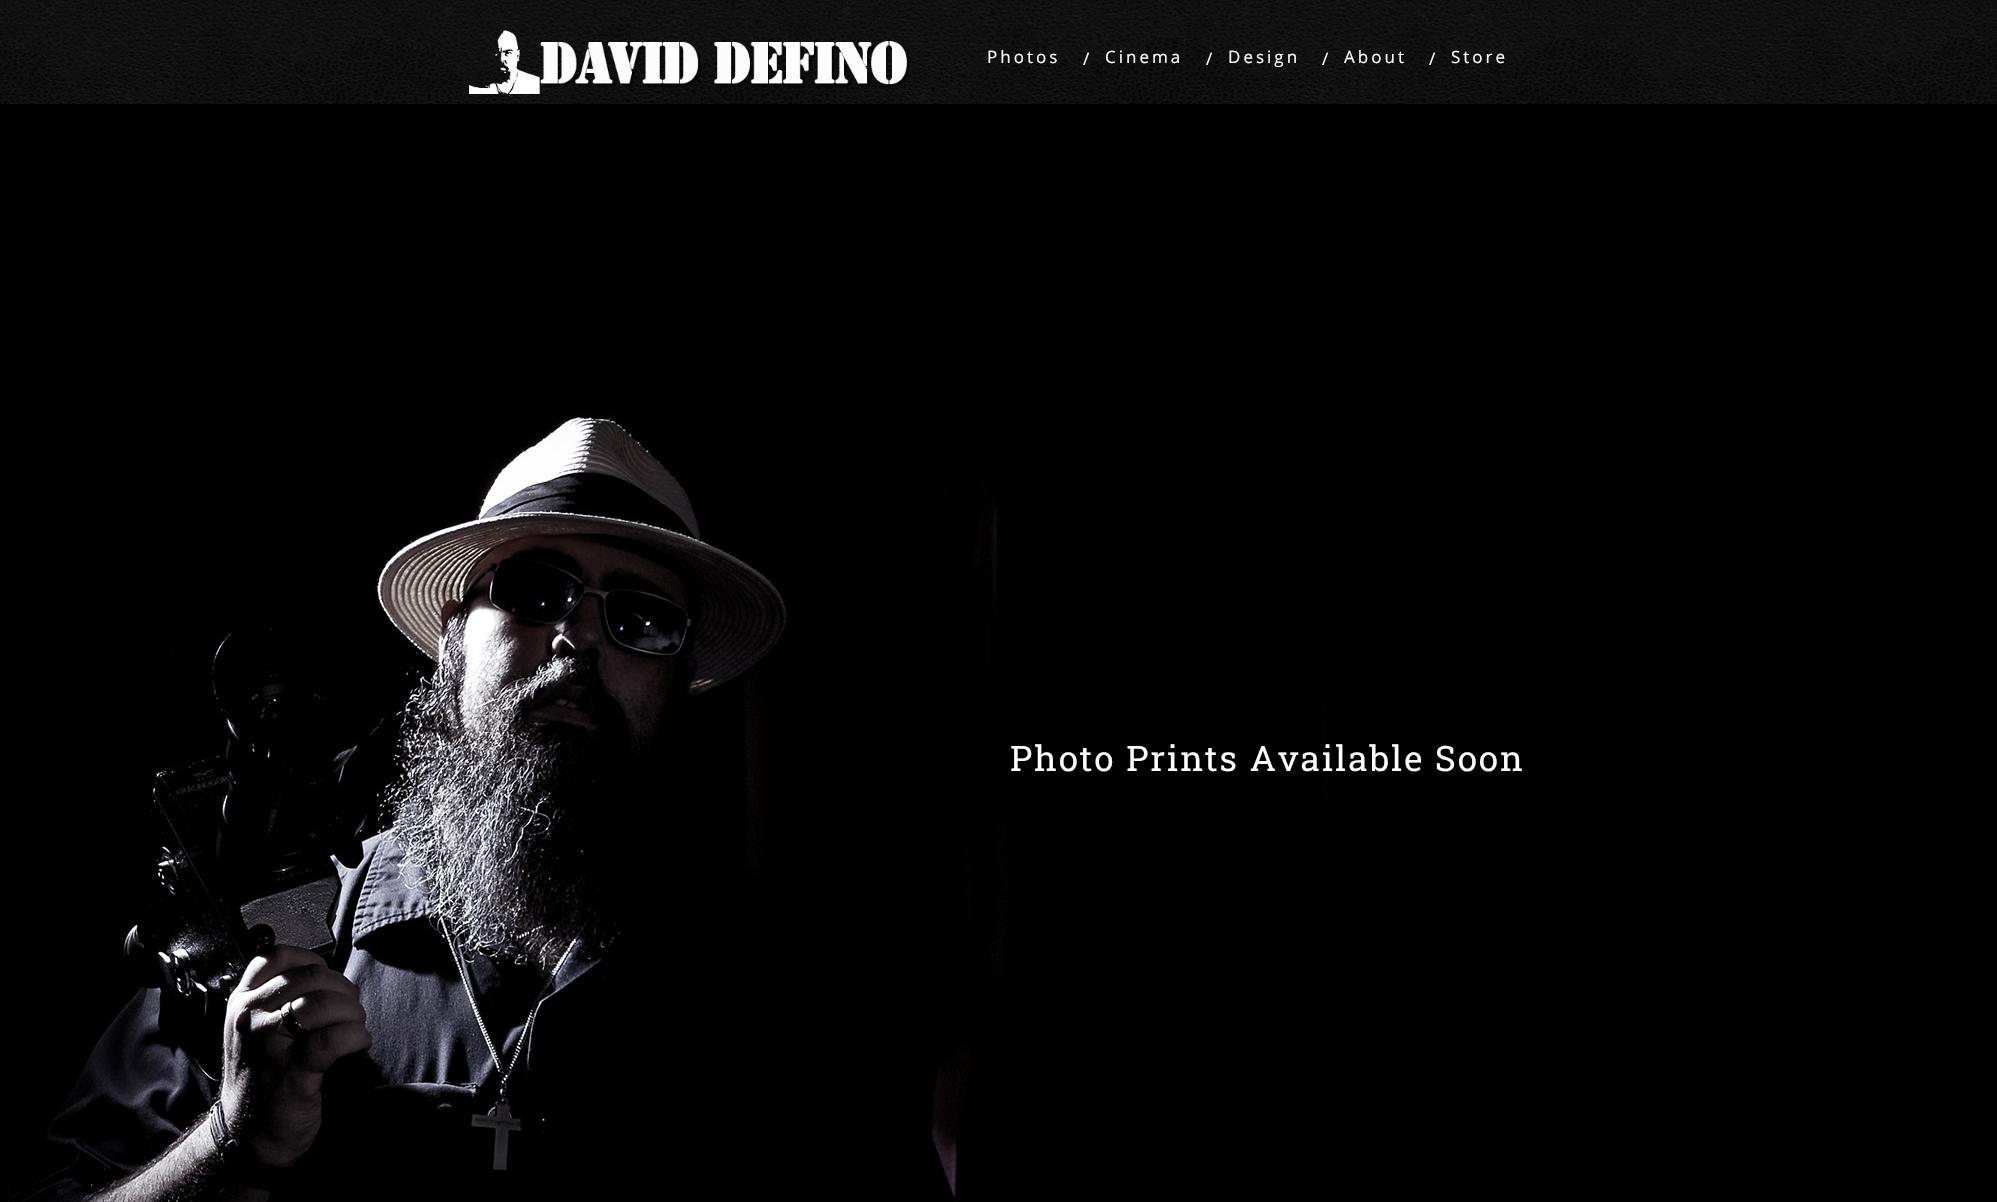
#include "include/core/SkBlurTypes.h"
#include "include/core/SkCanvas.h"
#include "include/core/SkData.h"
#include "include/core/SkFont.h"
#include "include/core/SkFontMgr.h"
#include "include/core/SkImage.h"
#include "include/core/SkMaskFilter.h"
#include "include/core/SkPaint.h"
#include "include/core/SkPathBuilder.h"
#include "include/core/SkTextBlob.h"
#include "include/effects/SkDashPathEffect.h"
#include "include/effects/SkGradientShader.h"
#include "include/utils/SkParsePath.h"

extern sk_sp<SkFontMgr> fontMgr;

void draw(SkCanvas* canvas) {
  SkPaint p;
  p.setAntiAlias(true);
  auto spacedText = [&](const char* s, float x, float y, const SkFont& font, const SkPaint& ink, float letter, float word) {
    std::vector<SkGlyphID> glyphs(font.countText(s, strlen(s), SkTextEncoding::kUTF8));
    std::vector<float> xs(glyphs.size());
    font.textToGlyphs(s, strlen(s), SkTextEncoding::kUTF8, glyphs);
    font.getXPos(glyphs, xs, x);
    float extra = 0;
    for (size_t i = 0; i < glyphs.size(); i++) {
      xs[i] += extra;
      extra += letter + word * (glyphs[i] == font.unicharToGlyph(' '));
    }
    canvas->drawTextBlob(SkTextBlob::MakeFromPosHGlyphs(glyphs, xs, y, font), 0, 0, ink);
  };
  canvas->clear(SK_ColorBLACK);
  canvas->drawImageRect(SkImages::DeferredFromEncodedData(SkData::MakeFromFileName("images/1.png")), SkRect::MakeLTRB(0, 0, 1997, 104), SkSamplingOptions());
  canvas->drawImageRect(SkImages::DeferredFromEncodedData(SkData::MakeFromFileName("images/2.png")), SkRect::MakeLTRB(469, 26, 910, 94), SkSamplingOptions());
  canvas->drawImageRect(SkImages::DeferredFromEncodedData(SkData::MakeFromFileName("images/3.png")), SkRect::MakeLTRB(8, 412, 1601, 1202), SkSamplingOptions());
  SkFont font1(fontMgr->matchFamilyStyle("Open Sans", SkFontStyle::Normal()), 17);
  font1.setSubpixel(true);
  p.setColor(SK_ColorWHITE);
  spacedText("Photos", 987, 63, font1, p, 3, 0);
  spacedText("/", 1083, 65, font1, p, 3, 0);
  spacedText("Cinema", 1105, 63, font1, p, 3, 0);
  spacedText("/", 1206, 65, font1, p, 3, 0);
  spacedText("Design", 1228, 63, font1, p, 3, 0);
  spacedText("/", 1322, 65, font1, p, 3, 0);
  spacedText("About", 1344, 63, font1, p, 3, 0);
  spacedText("/", 1429, 65, font1, p, 3, 0);
  spacedText("Store", 1451, 63, font1, p, 3, 0);
  SkFont font2(fontMgr->matchFamilyStyle("Roboto Slab", SkFontStyle::Normal()), 35);
  font2.setSubpixel(true);
  spacedText("Photo Prints Available Soon", 1010, 771, font2, p, 2, 0);
}
